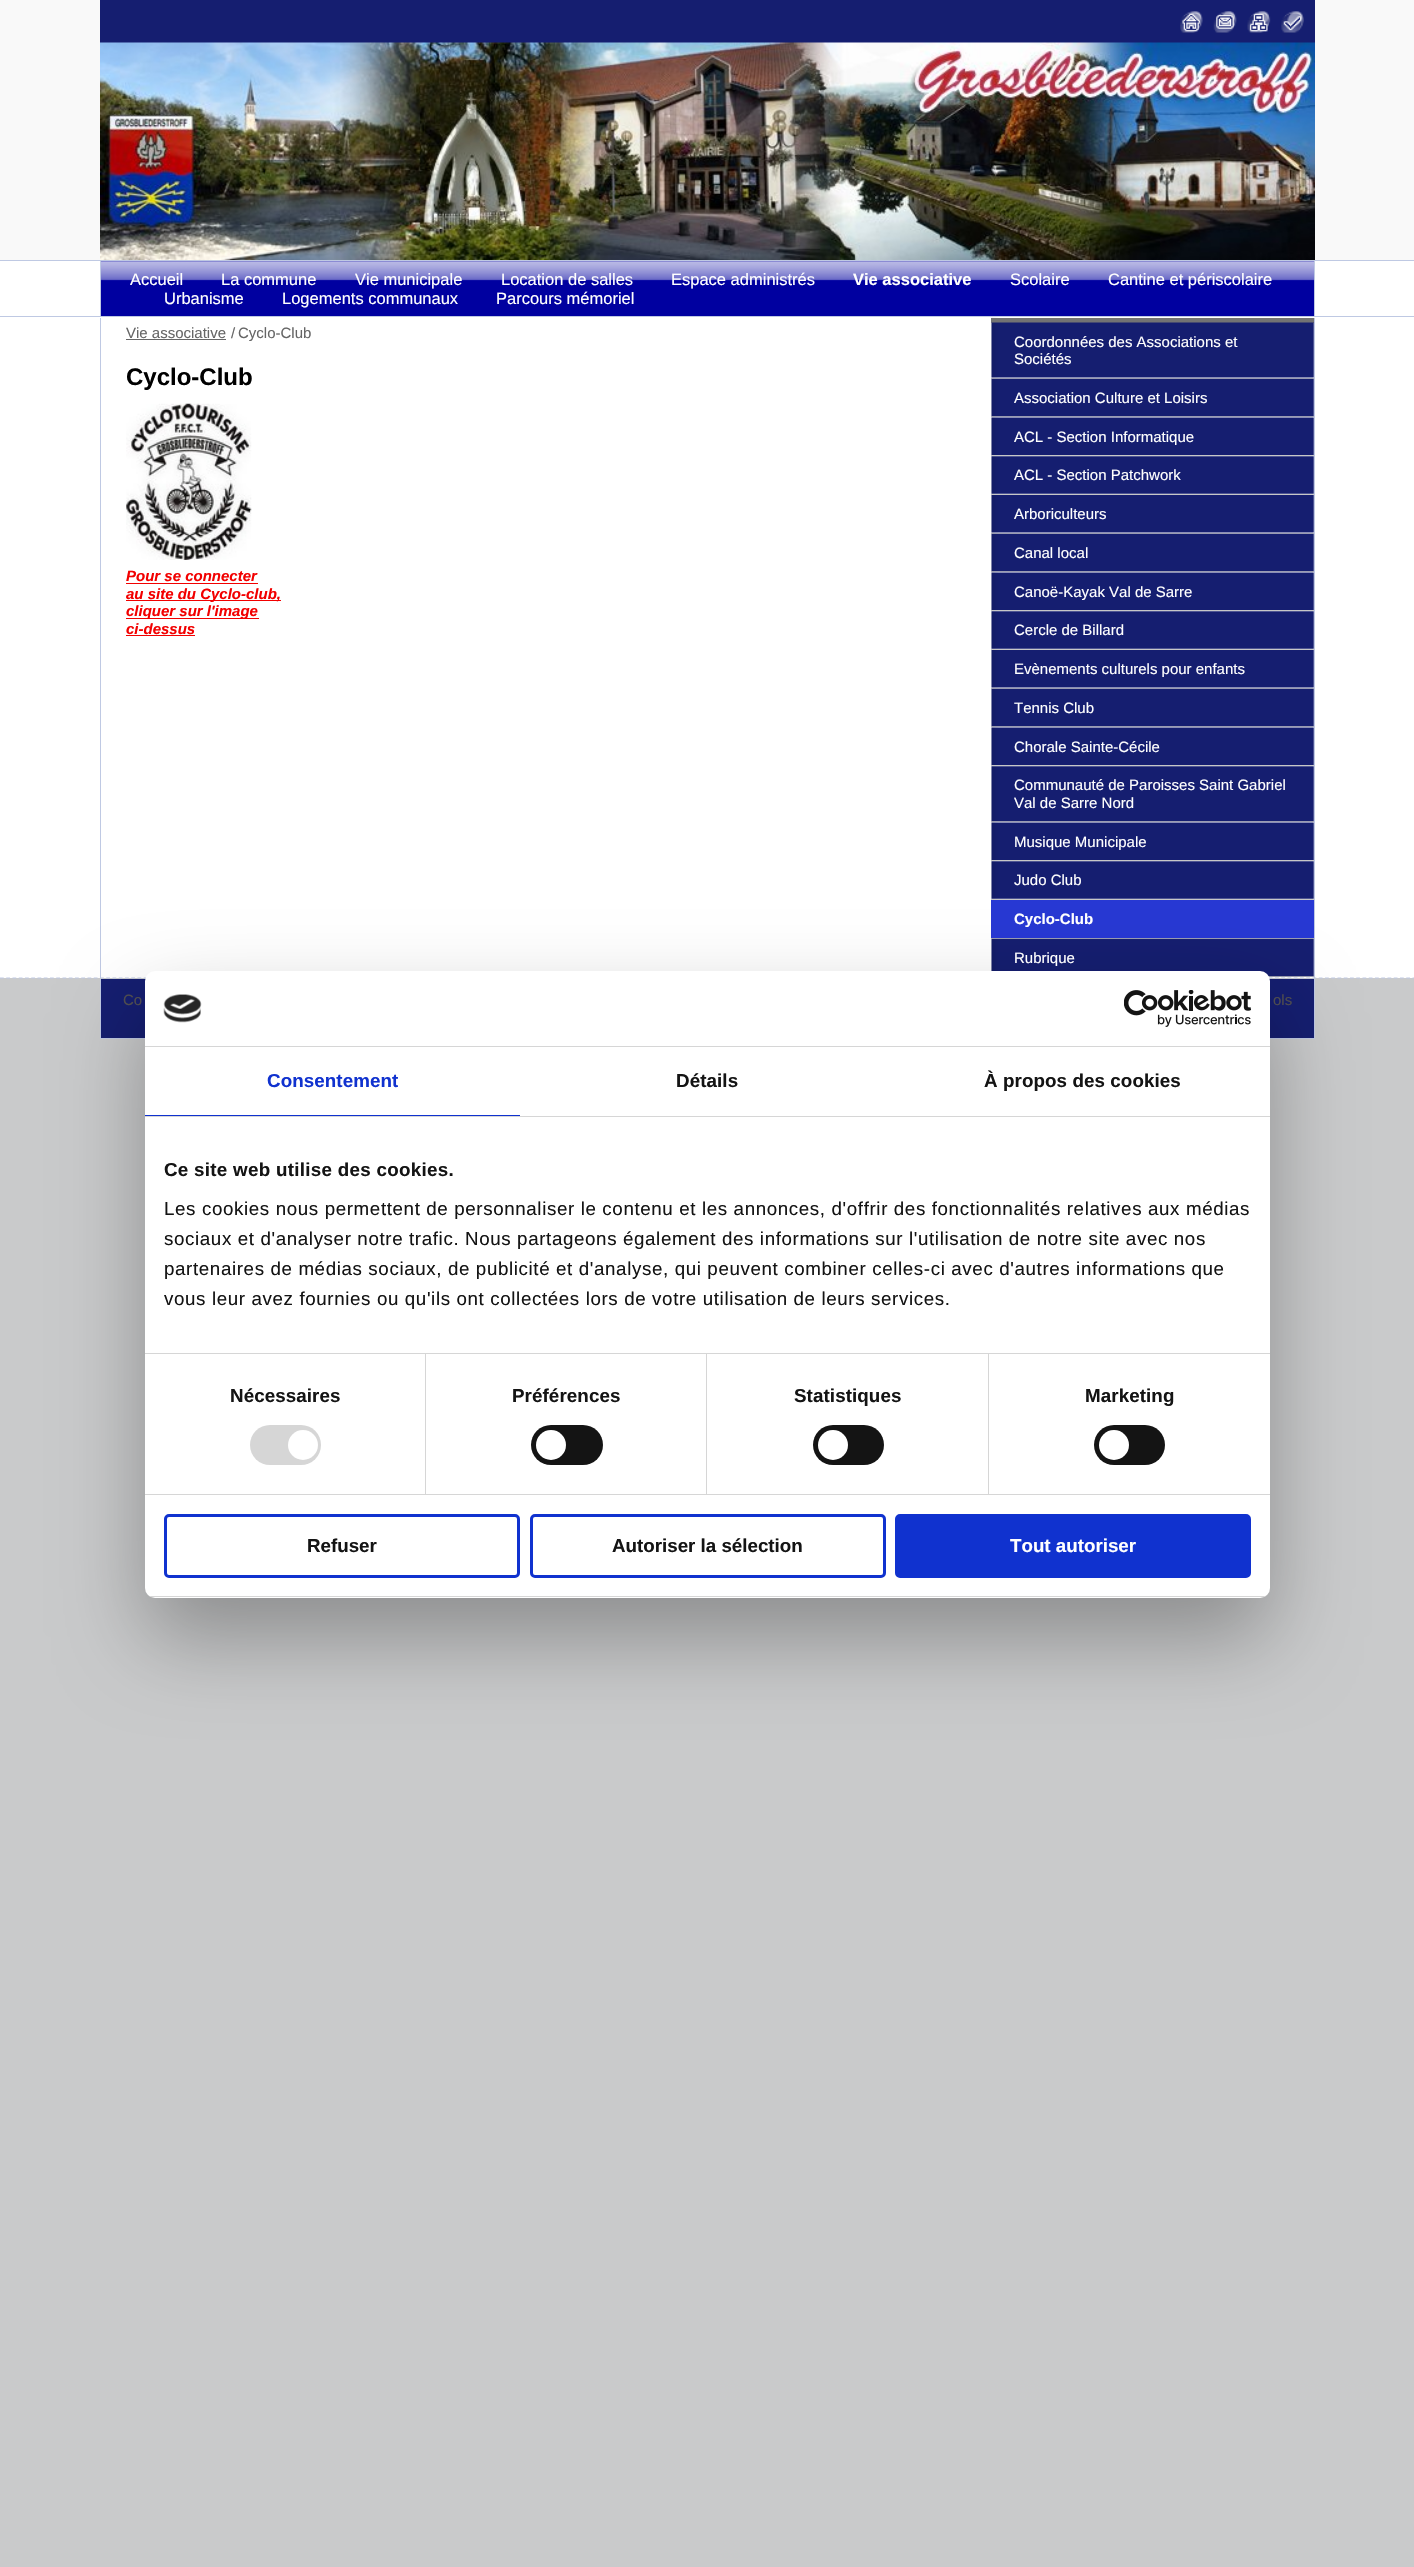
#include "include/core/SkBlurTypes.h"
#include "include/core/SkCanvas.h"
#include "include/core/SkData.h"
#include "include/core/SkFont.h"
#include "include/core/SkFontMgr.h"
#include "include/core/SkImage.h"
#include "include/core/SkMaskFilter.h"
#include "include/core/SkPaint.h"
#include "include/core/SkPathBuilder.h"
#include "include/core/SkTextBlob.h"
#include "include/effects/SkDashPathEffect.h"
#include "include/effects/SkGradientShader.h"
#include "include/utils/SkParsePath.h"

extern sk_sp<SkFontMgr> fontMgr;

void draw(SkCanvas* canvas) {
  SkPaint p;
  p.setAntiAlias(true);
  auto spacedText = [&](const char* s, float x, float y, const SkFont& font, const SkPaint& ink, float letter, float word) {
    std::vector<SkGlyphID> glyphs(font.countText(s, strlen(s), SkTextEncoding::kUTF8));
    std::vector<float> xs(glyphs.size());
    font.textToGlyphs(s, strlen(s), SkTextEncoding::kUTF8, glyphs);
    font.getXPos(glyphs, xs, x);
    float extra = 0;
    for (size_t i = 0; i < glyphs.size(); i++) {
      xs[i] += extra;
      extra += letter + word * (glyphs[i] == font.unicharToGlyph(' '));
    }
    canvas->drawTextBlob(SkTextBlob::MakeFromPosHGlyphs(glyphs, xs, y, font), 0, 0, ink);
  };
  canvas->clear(SkColorSetRGB(201, 202, 203));
  p.setColor(SK_ColorWHITE);
  canvas->drawRect(SkRect::MakeLTRB(0, 261, 1414, 978), p);
  p.setColor(SkColorSetRGB(249, 249, 249));
  canvas->drawRect(SkRect::MakeLTRB(0, 0, 1414, 260), p);
  p.setColor(SkColorSetRGB(21, 30, 112));
  canvas->drawRect(SkRect::MakeLTRB(100, 0, 1315, 43), p);
  canvas->drawImageRect(SkImages::DeferredFromEncodedData(SkData::MakeFromFileName("images/1.png")), SkRect::MakeLTRB(1180, 11, 1203, 33), SkSamplingOptions());
  canvas->drawImageRect(SkImages::DeferredFromEncodedData(SkData::MakeFromFileName("images/2.png")), SkRect::MakeLTRB(1213, 11, 1237, 33), SkSamplingOptions());
  canvas->drawImageRect(SkImages::DeferredFromEncodedData(SkData::MakeFromFileName("images/3.png")), SkRect::MakeLTRB(1247, 11, 1271, 33), SkSamplingOptions());
  canvas->drawImageRect(SkImages::DeferredFromEncodedData(SkData::MakeFromFileName("images/4.png")), SkRect::MakeLTRB(1281, 11, 1304, 33), SkSamplingOptions());
  canvas->drawImageRect(SkImages::DeferredFromEncodedData(SkData::MakeFromFileName("images/5.png")), SkRect::MakeLTRB(100, 42, 1315, 260), SkSamplingOptions());
  p.setColor(SkColorSetRGB(191, 201, 227));
  canvas->drawRect(SkRect::MakeLTRB(0, 260, 1414, 261), p);
  canvas->drawRect(SkRect::MakeLTRB(0, 316, 1414, 317), p);
  p.setColor(SkColorSetRGB(0, 0, 160));
  canvas->drawRect(SkRect::MakeLTRB(101, 261, 1314, 316), p);
  canvas->drawImageRect(SkImages::DeferredFromEncodedData(SkData::MakeFromFileName("images/6.png")), SkRect::MakeLTRB(101, 261, 1314, 281), SkSamplingOptions());
  p.setColor(SkColorSetRGB(191, 201, 227));
  canvas->drawRect(SkRect::MakeLTRB(1314, 261, 1315, 316), p);
  canvas->drawRect(SkRect::MakeLTRB(100, 261, 101, 316), p);
  canvas->drawImageRect(SkImages::DeferredFromEncodedData(SkData::MakeFromFileName("images/7.png")), SkRect::MakeLTRB(991, 317, 998, 971), SkSamplingOptions());
  canvas->drawRect(SkRect::MakeLTRB(1314, 318, 1315, 978), p);
  canvas->drawRect(SkRect::MakeLTRB(100, 318, 101, 978), p);
  p.setColor(SkColorSetRGB(102, 102, 102));
  canvas->drawRect(SkRect::MakeLTRB(126, 339, 226, 340), p);
  canvas->drawImageRect(SkImages::DeferredFromEncodedData(SkData::MakeFromFileName("images/8.png")), SkRect::MakeLTRB(126, 403, 252, 560), SkSamplingOptions());
  p.setColor(SkColorSetRGB(242, 0, 0));
  canvas->drawRect(SkRect::MakeLTRB(126, 583, 258, 584), p);
  canvas->drawRect(SkRect::MakeLTRB(126, 600, 281, 601), p);
  canvas->drawRect(SkRect::MakeLTRB(126, 618, 259, 619), p);
  canvas->drawRect(SkRect::MakeLTRB(126, 635, 195, 636), p);
  p.setColor(SkColorSetRGB(115, 115, 115));
  canvas->drawRect(SkRect::MakeLTRB(991, 318, 1314, 323), p);
  p.setColor(SkColorSetRGB(199, 199, 199));
  canvas->drawRect(SkRect::MakeLTRB(991, 378, 1314, 379), p);
  canvas->drawImageRect(SkImages::DeferredFromEncodedData(SkData::MakeFromFileName("images/9.png")), SkRect::MakeLTRB(991, 322, 1314, 378), SkSamplingOptions());
  canvas->drawRect(SkRect::MakeLTRB(991, 416, 1314, 417), p);
  canvas->drawImageRect(SkImages::DeferredFromEncodedData(SkData::MakeFromFileName("images/10.png")), SkRect::MakeLTRB(991, 378, 1314, 417), SkSamplingOptions());
  canvas->drawRect(SkRect::MakeLTRB(991, 455, 1314, 456), p);
  canvas->drawImageRect(SkImages::DeferredFromEncodedData(SkData::MakeFromFileName("images/11.png")), SkRect::MakeLTRB(991, 417, 1314, 455), SkSamplingOptions());
  canvas->drawRect(SkRect::MakeLTRB(991, 494, 1314, 495), p);
  canvas->drawImageRect(SkImages::DeferredFromEncodedData(SkData::MakeFromFileName("images/12.png")), SkRect::MakeLTRB(991, 456, 1314, 494), SkSamplingOptions());
  canvas->drawRect(SkRect::MakeLTRB(991, 533, 1314, 534), p);
  canvas->drawImageRect(SkImages::DeferredFromEncodedData(SkData::MakeFromFileName("images/13.png")), SkRect::MakeLTRB(991, 495, 1314, 533), SkSamplingOptions());
  canvas->drawRect(SkRect::MakeLTRB(991, 571, 1314, 572), p);
  canvas->drawImageRect(SkImages::DeferredFromEncodedData(SkData::MakeFromFileName("images/10.png")), SkRect::MakeLTRB(991, 533, 1314, 572), SkSamplingOptions());
  canvas->drawRect(SkRect::MakeLTRB(991, 610, 1314, 611), p);
  canvas->drawImageRect(SkImages::DeferredFromEncodedData(SkData::MakeFromFileName("images/11.png")), SkRect::MakeLTRB(991, 572, 1314, 610), SkSamplingOptions());
  canvas->drawRect(SkRect::MakeLTRB(991, 649, 1314, 650), p);
  canvas->drawImageRect(SkImages::DeferredFromEncodedData(SkData::MakeFromFileName("images/12.png")), SkRect::MakeLTRB(991, 611, 1314, 649), SkSamplingOptions());
  canvas->drawRect(SkRect::MakeLTRB(991, 688, 1314, 689), p);
  canvas->drawImageRect(SkImages::DeferredFromEncodedData(SkData::MakeFromFileName("images/13.png")), SkRect::MakeLTRB(991, 650, 1314, 688), SkSamplingOptions());
  canvas->drawRect(SkRect::MakeLTRB(991, 726, 1314, 727), p);
  canvas->drawImageRect(SkImages::DeferredFromEncodedData(SkData::MakeFromFileName("images/10.png")), SkRect::MakeLTRB(991, 688, 1314, 727), SkSamplingOptions());
  canvas->drawRect(SkRect::MakeLTRB(991, 765, 1314, 766), p);
  canvas->drawImageRect(SkImages::DeferredFromEncodedData(SkData::MakeFromFileName("images/11.png")), SkRect::MakeLTRB(991, 727, 1314, 765), SkSamplingOptions());
  canvas->drawRect(SkRect::MakeLTRB(991, 821, 1314, 822), p);
  canvas->drawImageRect(SkImages::DeferredFromEncodedData(SkData::MakeFromFileName("images/14.png")), SkRect::MakeLTRB(991, 766, 1314, 822), SkSamplingOptions());
  canvas->drawRect(SkRect::MakeLTRB(991, 860, 1314, 861), p);
  canvas->drawImageRect(SkImages::DeferredFromEncodedData(SkData::MakeFromFileName("images/11.png")), SkRect::MakeLTRB(991, 822, 1314, 860), SkSamplingOptions());
  canvas->drawRect(SkRect::MakeLTRB(991, 899, 1314, 900), p);
  canvas->drawImageRect(SkImages::DeferredFromEncodedData(SkData::MakeFromFileName("images/12.png")), SkRect::MakeLTRB(991, 861, 1314, 899), SkSamplingOptions());
  canvas->drawRect(SkRect::MakeLTRB(991, 938, 1314, 939), p);
  p.setColor(SkColorSetRGB(39, 56, 211));
  canvas->drawRect(SkRect::MakeLTRB(991, 900, 1314, 938), p);
  p.setColor(SkColorSetRGB(199, 199, 199));
  canvas->drawRect(SkRect::MakeLTRB(1268, 976, 1314, 977), p);
  canvas->drawImageRect(SkImages::DeferredFromEncodedData(SkData::MakeFromFileName("images/10.png")), SkRect::MakeLTRB(991, 938, 1314, 977), SkSamplingOptions());
  p.setStyle(SkPaint::kStroke_Style);
  p.setStrokeWidth(1.2f);
  p.setColor(SkColorSetRGB(191, 201, 227));
  p.setPathEffect(SkDashPathEffect::Make({{3.75f, 2.5f}}, 0));
  canvas->drawPath(SkPathBuilder().moveTo(0, 978).lineTo(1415, 978).detach(), p);
  p.setPathEffect(nullptr);
  p.setStyle(SkPaint::kFill_Style);
  canvas->drawRect(SkRect::MakeLTRB(100, 1038, 1315, 1039), p);
  p.setColor(SkColorSetRGB(21, 30, 112));
  canvas->drawRect(SkRect::MakeLTRB(101, 979, 1314, 1038), p);
  p.setColor(SkColorSetRGB(191, 201, 227));
  canvas->drawRect(SkRect::MakeLTRB(1314, 979, 1315, 1038), p);
  canvas->drawRect(SkRect::MakeLTRB(100, 979, 101, 1038), p);
  p.setColor(SkColorSetARGB(77, 0, 0, 0));
  p.setMaskFilter(SkMaskFilter::MakeBlur(kNormal_SkBlurStyle, 42.5f));
  canvas->drawRoundRect(SkRect::MakeLTRB(145, 1011, 1270, 1638), 10, 10, p);
  p.setMaskFilter(nullptr);
  p.setColor(SK_ColorWHITE);
  canvas->drawRoundRect(SkRect::MakeLTRB(145, 971, 1270, 1598), 10, 10, p);
  p.setColor(SkColorSetRGB(214, 214, 214));
  canvas->drawRect(SkRect::MakeLTRB(145, 1046, 1270, 1047), p);
  canvas->drawImageRect(SkImages::DeferredFromEncodedData(SkData::MakeFromFileName("images/15.png")), SkRect::MakeLTRB(163, 994, 202, 1023), SkSamplingOptions());
  canvas->drawImageRect(SkImages::DeferredFromEncodedData(SkData::MakeFromFileName("images/16.png")), SkRect::MakeLTRB(1124, 990, 1251, 1027), SkSamplingOptions());
  canvas->drawRect(SkRect::MakeLTRB(145, 1116, 1270, 1117), p);
  p.setColor(SkColorSetRGB(16, 50, 207));
  canvas->drawRect(SkRect::MakeLTRB(145, 1115, 520, 1116), p);
  p.setColor(SkColorSetRGB(214, 214, 214));
  canvas->drawRect(SkRect::MakeLTRB(145, 1353, 1270, 1354), p);
  canvas->drawRect(SkRect::MakeLTRB(145, 1494, 1270, 1495), p);
  canvas->drawRect(SkRect::MakeLTRB(425, 1354, 426, 1494), p);
  canvas->drawRoundRect(SkRect::MakeLTRB(250, 1425, 321, 1465), 20, 20, p);
  p.setColor(SK_ColorWHITE);
  canvas->drawCircle(303, 1445, 15, p);
  p.setColor(SkColorSetRGB(214, 214, 214));
  canvas->drawRect(SkRect::MakeLTRB(706, 1354, 707, 1494), p);
  p.setColor(SkColorSetRGB(20, 20, 20));
  canvas->drawRoundRect(SkRect::MakeLTRB(531, 1425, 603, 1465), 20, 20, p);
  p.setColor(SK_ColorWHITE);
  canvas->drawCircle(551, 1445, 15, p);
  p.setColor(SkColorSetRGB(214, 214, 214));
  canvas->drawRect(SkRect::MakeLTRB(988, 1354, 989, 1494), p);
  p.setColor(SkColorSetRGB(20, 20, 20));
  canvas->drawRoundRect(SkRect::MakeLTRB(813, 1425, 884, 1465), 20, 20, p);
  p.setColor(SK_ColorWHITE);
  canvas->drawCircle(833, 1445, 15, p);
  p.setColor(SkColorSetRGB(20, 20, 20));
  canvas->drawRoundRect(SkRect::MakeLTRB(1094, 1425, 1165, 1465), 20, 20, p);
  p.setColor(SK_ColorWHITE);
  canvas->drawCircle(1114, 1445, 15, p);
  canvas->save();
  canvas->clipPath(SkPathBuilder().moveTo(155, 971).lineTo(1260, 971).cubicTo(1265.5f, 971, 1270, 975.5f, 1270, 981).lineTo(1270, 1588).cubicTo(1270, 1593.5f, 1265.5f, 1598, 1260, 1598).lineTo(155, 1598).cubicTo(149.5f, 1598, 145, 1593.5f, 145, 1588).lineTo(145, 981).cubicTo(145, 975.5f, 149.5f, 971, 155, 971).close().detach(), true);
  p.setColor(SkColorSetRGB(214, 214, 214));
  canvas->drawRect(SkRect::MakeLTRB(145, 1596, 1270, 1597), p);
  canvas->restore();
  p.setStyle(SkPaint::kStroke_Style);
  p.setStrokeWidth(3);
  p.setColor(SkColorSetRGB(16, 50, 207));
  canvas->drawRoundRect(SkRect::MakeLTRB(165.5f, 1515.5f, 518.5f, 1576.5f), 3.5f, 3.5f, p);
  canvas->drawRoundRect(SkRect::MakeLTRB(531.5f, 1515.5f, 884.5f, 1576.5f), 3.5f, 3.5f, p);
  p.setStyle(SkPaint::kFill_Style);
  canvas->drawRoundRect(SkRect::MakeLTRB(896.5f, 1515.5f, 1249.5f, 1576.5f), 3.5f, 3.5f, p);
  p.setStyle(SkPaint::kStroke_Style);
  canvas->drawRoundRect(SkRect::MakeLTRB(896.5f, 1515.5f, 1249.5f, 1576.5f), 3.5f, 3.5f, p);
  SkFont font1(fontMgr->matchFamilyStyle("Liberation Sans", SkFontStyle::Normal()), 16.5f);
  font1.setSubpixel(true);
  p.setStyle(SkPaint::kFill_Style);
  p.setColor(SK_ColorWHITE);
  canvas->drawString("Accueil", 130, 285, font1, p);
  canvas->drawString("La commune", 221, 285, font1, p);
  canvas->drawString("Vie municipale", 355, 285, font1, p);
  canvas->drawString("Location de salles", 501, 285, font1, p);
  canvas->drawString("Espace administrés", 671, 285, font1, p);
  SkFont font2(fontMgr->matchFamilyStyle("Liberation Sans", SkFontStyle::Bold()), 16.5f);
  font2.setSubpixel(true);
  canvas->drawString("Vie associative", 853, 285, font2, p);
  canvas->drawString("Scolaire", 1010, 285, font1, p);
  canvas->drawString("Cantine et périscolaire", 1108, 285, font1, p);
  canvas->drawString("Urbanisme", 164, 304, font1, p);
  canvas->drawString("Logements communaux", 282, 304, font1, p);
  canvas->drawString("Parcours mémoriel", 496, 304, font1, p);
  SkFont font3(fontMgr->matchFamilyStyle("Liberation Sans", SkFontStyle::Normal()), 15);
  font3.setSubpixel(true);
  p.setColor(SkColorSetRGB(102, 102, 102));
  canvas->drawString("Vie associative", 126, 338, font3, p);
  canvas->drawString("/", 231, 338, font3, p);
  canvas->drawString("Cyclo-Club", 238, 338, font3, p);
  SkFont font4(fontMgr->matchFamilyStyle("Liberation Sans", SkFontStyle::Bold()), 24);
  font4.setSubpixel(true);
  p.setColor(SK_ColorBLACK);
  canvas->drawString("Cyclo-Club", 126, 385, font4, p);
  SkFont font5(fontMgr->matchFamilyStyle("Liberation Sans", SkFontStyle::BoldItalic()), 15);
  font5.setSubpixel(true);
  p.setColor(SkColorSetRGB(242, 0, 0));
  canvas->drawString("Pour se connecter", 126, 581, font5, p);
  canvas->drawString("au site du Cyclo-club,", 126, 599, font5, p);
  canvas->drawString("cliquer sur l'image", 126, 616, font5, p);
  canvas->drawString("ci-dessus", 126, 634, font5, p);
  p.setColor(SK_ColorWHITE);
  canvas->drawString("Coordonnées des Associations et", 1014, 347, font3, p);
  canvas->drawString("Sociétés", 1014, 364, font3, p);
  canvas->drawString("Association Culture et Loisirs", 1014, 403, font3, p);
  canvas->drawString("ACL - Section Informatique", 1014, 442, font3, p);
  canvas->drawString("ACL - Section Patchwork", 1014, 480, font3, p);
  canvas->drawString("Arboriculteurs", 1014, 519, font3, p);
  canvas->drawString("Canal local", 1014, 558, font3, p);
  canvas->drawString("Canoë-Kayak Val de Sarre", 1014, 597, font3, p);
  canvas->drawString("Cercle de Billard", 1014, 635, font3, p);
  canvas->drawString("Evènements culturels pour enfants", 1014, 674, font3, p);
  canvas->drawString("Tennis Club", 1014, 713, font3, p);
  canvas->drawString("Chorale Sainte-Cécile", 1014, 752, font3, p);
  canvas->drawString("Communauté de Paroisses Saint Gabriel", 1014, 790, font3, p);
  canvas->drawString("Val de Sarre Nord", 1014, 808, font3, p);
  canvas->drawString("Musique Municipale", 1014, 847, font3, p);
  canvas->drawString("Judo Club", 1014, 885, font3, p);
  SkFont font6(fontMgr->matchFamilyStyle("Liberation Sans", SkFontStyle::Bold()), 15);
  font6.setSubpixel(true);
  canvas->drawString("Cyclo-Club", 1014, 924, font6, p);
  canvas->drawString("Rubrique", 1014, 963, font3, p);
  p.setColor(SkColorSetRGB(78, 76, 78));
  canvas->drawString("Co", 123, 1005, font3, p);
  canvas->drawString("ols", 1273, 1005, font3, p);
  SkFont font7(fontMgr->matchFamilyStyle("Liberation Sans", SkFontStyle::Bold()), 18.75f);
  font7.setSubpixel(true);
  p.setColor(SkColorSetRGB(16, 50, 207));
  spacedText("Consentement", 267, 1087, font7, p, 0.1f, 0);
  p.setColor(SkColorSetRGB(20, 20, 20));
  spacedText("Détails", 676, 1087, font7, p, 0.1f, 0);
  spacedText("À propos des cookies", 984, 1087, font7, p, 0.1f, 0);
  spacedText("Ce site web utilise des cookies.", 164, 1176, font7, p, 0.3f, 0);
  SkFont font8(fontMgr->matchFamilyStyle("Liberation Sans", SkFontStyle::Normal()), 18.75f);
  font8.setSubpixel(true);
  spacedText("Les cookies nous permettent de personnaliser le contenu et les annonces, d'offrir des fonctionnalités relatives aux médias", 164, 1215, font8, p, 0.62f, 0);
  spacedText("sociaux et d'analyser notre trafic. Nous partageons également des informations sur l'utilisation de notre site avec nos", 164, 1245, font8, p, 0.62f, 0);
  spacedText("partenaires de médias sociaux, de publicité et d'analyse, qui peuvent combiner celles-ci avec d'autres informations que", 164, 1275, font8, p, 0.62f, 0);
  spacedText("vous leur avez fournies ou qu'ils ont collectées lors de votre utilisation de leurs services.", 164, 1305, font8, p, 0.62f, 0);
  spacedText("Nécessaires", 230, 1402, font7, p, 0.1f, 0);
  spacedText("Préférences", 512, 1402, font7, p, 0.1f, 0);
  spacedText("Statistiques", 794, 1402, font7, p, 0.1f, 0);
  spacedText("Marketing", 1085, 1402, font7, p, 0.1f, 0);
  canvas->drawString("Refuser", 307, 1552, font7, p);
  canvas->drawString("Autoriser la sélection", 612, 1552, font7, p);
  p.setColor(SK_ColorWHITE);
  canvas->drawString("Tout autoriser", 1010, 1552, font7, p);
}
